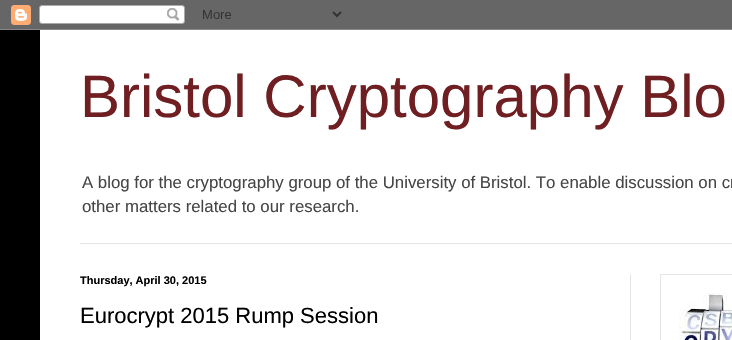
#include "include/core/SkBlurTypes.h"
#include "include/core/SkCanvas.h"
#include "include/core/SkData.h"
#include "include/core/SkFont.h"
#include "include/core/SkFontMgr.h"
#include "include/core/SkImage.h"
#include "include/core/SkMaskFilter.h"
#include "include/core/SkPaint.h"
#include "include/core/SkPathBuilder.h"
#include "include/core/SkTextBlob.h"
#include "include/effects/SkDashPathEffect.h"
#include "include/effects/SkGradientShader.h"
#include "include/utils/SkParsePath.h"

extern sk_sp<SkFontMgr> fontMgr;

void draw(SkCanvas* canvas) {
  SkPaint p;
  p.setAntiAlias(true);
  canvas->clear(SK_ColorBLACK);
  canvas->drawImageRect(SkImages::DeferredFromEncodedData(SkData::MakeFromFileName("images/1.png")), SkRect::MakeLTRB(0, 0, 732, 30), SkSamplingOptions());
  p.setColor(SK_ColorWHITE);
  canvas->drawRect(SkRect::MakeLTRB(40, 30, 732, 340), p);
  p.setColor(SkColorSetRGB(229, 229, 229));
  canvas->drawRect(SkRect::MakeLTRB(80, 243, 732, 244), p);
  p.setStyle(SkPaint::kStroke_Style);
  p.setStrokeWidth(1);
  canvas->drawRect(SkRect::MakeLTRB(660.5f, 274.5f, 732.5f, 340.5f), p);
  canvas->drawImageRect(SkImages::DeferredFromEncodedData(SkData::MakeFromFileName("images/2.png")), SkRect::MakeLTRB(679, 293, 732, 340), SkSamplingOptions());
  p.setStyle(SkPaint::kFill_Style);
  canvas->drawRect(SkRect::MakeLTRB(630, 274, 631, 340), p);
  SkFont font1(fontMgr->matchFamilyStyle("Liberation Sans", SkFontStyle::Normal()), 60);
  font1.setSubpixel(true);
  p.setColor(SkColorSetRGB(111, 30, 33));
  canvas->drawString("Bristol Cryptography Blo", 80, 117, font1, p);
  SkFont font2(fontMgr->matchFamilyStyle("Liberation Sans", SkFontStyle::Normal()), 16.8f);
  font2.setSubpixel(true);
  p.setColor(SkColorSetRGB(70, 70, 70));
  canvas->drawString("A blog for the cryptography group of the University of Bristol. To enable discussion on cr", 82, 188, font2, p);
  canvas->drawString("other matters related to our research.", 82, 212, font2, p);
  SkFont font3(fontMgr->matchFamilyStyle("Liberation Sans", SkFontStyle::Bold()), 11);
  font3.setSubpixel(true);
  p.setColor(SK_ColorBLACK);
  canvas->drawString("Thursday, April 30, 2015", 80, 284, font3, p);
  SkFont font4(fontMgr->matchFamilyStyle("Liberation Sans", SkFontStyle::Normal()), 22);
  font4.setSubpixel(true);
  canvas->drawString("Eurocrypt 2015 Rump Session", 80, 323, font4, p);
}
